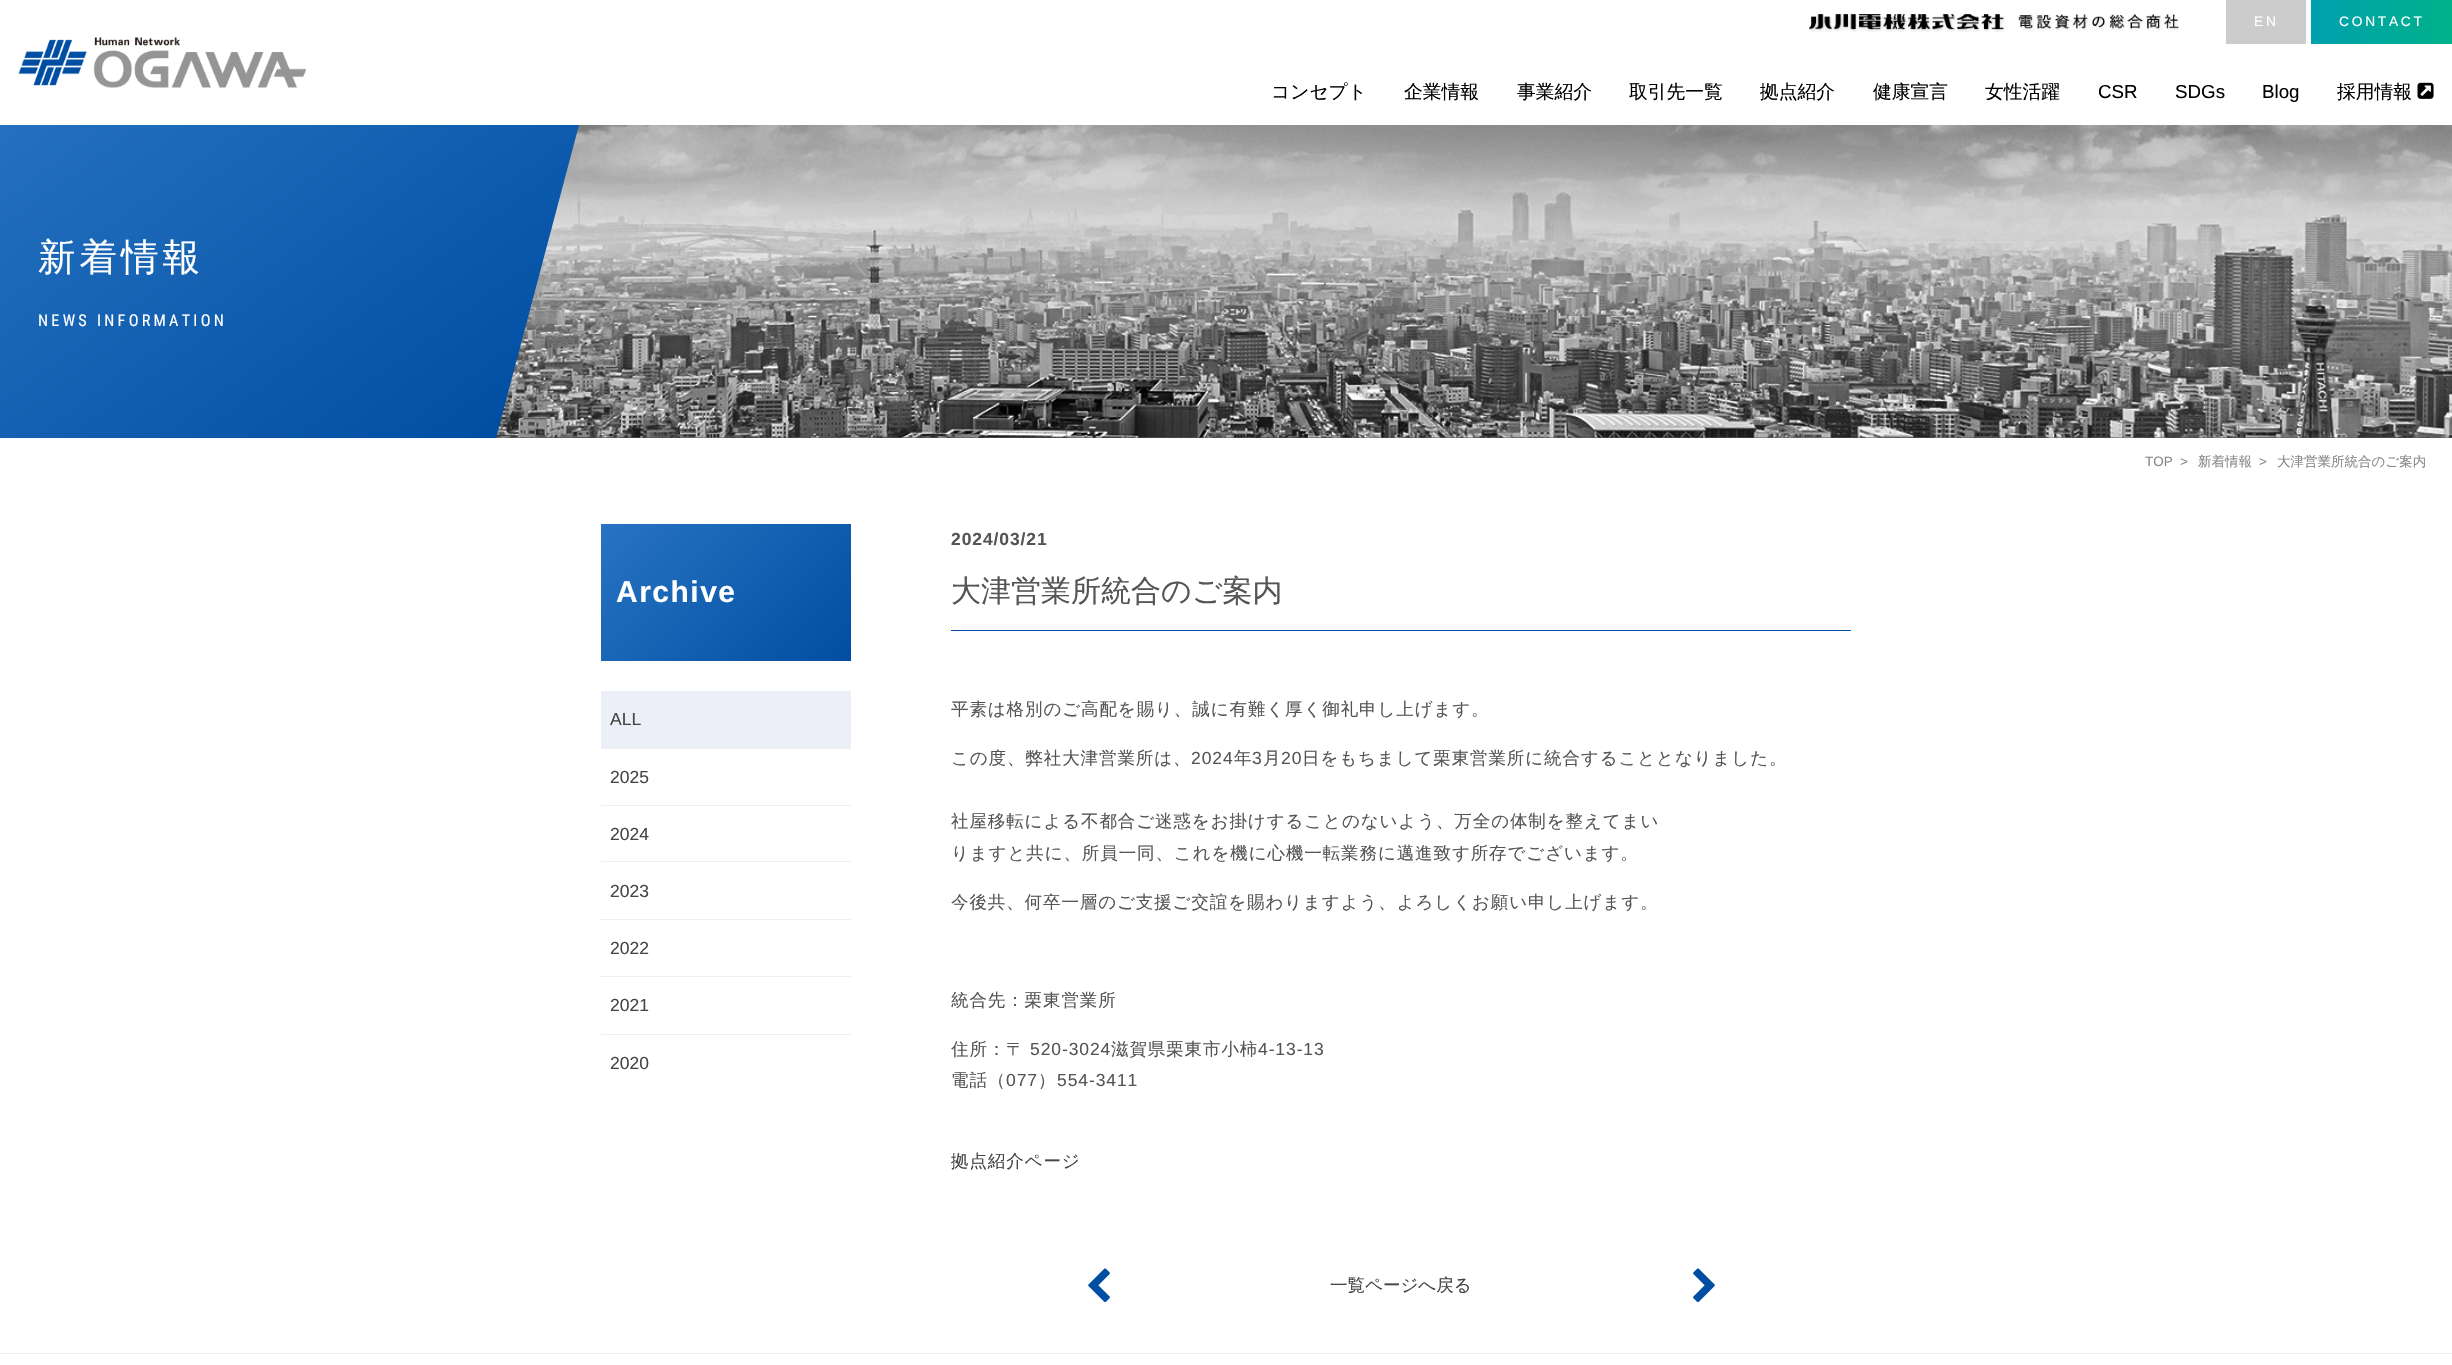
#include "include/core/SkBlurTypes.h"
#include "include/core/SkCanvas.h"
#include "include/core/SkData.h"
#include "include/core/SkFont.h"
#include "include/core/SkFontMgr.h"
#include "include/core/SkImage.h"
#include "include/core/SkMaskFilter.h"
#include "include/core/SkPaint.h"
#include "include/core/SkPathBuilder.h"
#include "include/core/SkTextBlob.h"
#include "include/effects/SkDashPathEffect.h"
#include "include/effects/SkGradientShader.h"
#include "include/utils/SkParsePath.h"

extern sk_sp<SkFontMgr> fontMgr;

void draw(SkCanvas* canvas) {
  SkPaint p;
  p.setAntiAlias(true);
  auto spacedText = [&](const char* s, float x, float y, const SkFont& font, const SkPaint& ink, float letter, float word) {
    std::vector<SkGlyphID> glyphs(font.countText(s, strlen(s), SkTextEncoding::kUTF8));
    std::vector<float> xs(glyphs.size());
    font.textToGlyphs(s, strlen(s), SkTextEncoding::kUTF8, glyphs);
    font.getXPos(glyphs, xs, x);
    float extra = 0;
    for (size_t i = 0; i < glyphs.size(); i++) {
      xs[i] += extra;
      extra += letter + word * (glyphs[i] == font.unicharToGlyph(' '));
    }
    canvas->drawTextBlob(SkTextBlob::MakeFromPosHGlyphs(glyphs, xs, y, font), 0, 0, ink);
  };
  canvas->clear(SK_ColorWHITE);
  canvas->drawImageRect(SkImages::DeferredFromEncodedData(SkData::MakeFromFileName("images/1.png")), SkRect::MakeLTRB(1809, 14, 2179, 32), SkSamplingOptions());
  p.setColor(SkColorSetRGB(204, 204, 204));
  canvas->drawRect(SkRect::MakeLTRB(2226, 0, 2306, 44), p);
  {
    const SkColor colors[] = {SkColorSetRGB(0, 160, 174), SkColorSetRGB(0, 178, 138)};
    const float stops[] = {0, 1};
    const SkPoint ends[] = {{2311, 22}, {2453, 22}};
    p.setShader(SkGradientShader::MakeLinear(ends, colors, stops, 2, SkTileMode::kClamp));
    p.setAlpha(255);
  }
  canvas->drawRect(SkRect::MakeLTRB(2311, 0, 2452, 44), p);
  canvas->drawImageRect(SkImages::DeferredFromEncodedData(SkData::MakeFromFileName("images/2.png")), SkRect::MakeLTRB(18, 37, 307, 88), SkSamplingOptions());
  canvas->drawImageRect(SkImages::DeferredFromEncodedData(SkData::MakeFromFileName("images/3.png")), SkRect::MakeLTRB(2417, 82, 2434, 99), SkSamplingOptions());
  p.setShader(nullptr);
  p.setColor(SkColorSetRGB(85, 85, 85));
  canvas->drawRect(SkRect::MakeLTRB(496, 437, 2452, 438), p);
  canvas->drawImageRect(SkImages::DeferredFromEncodedData(SkData::MakeFromFileName("images/4.png")), SkRect::MakeLTRB(496, 125, 2452, 438), SkSamplingOptions());
  {
    const SkColor colors[] = {SkColorSetRGB(40, 115, 194), SkColorSetRGB(0, 78, 162)};
    const float stops[] = {0.01f, 1};
    const SkPoint ends[] = {{28, 38}, {385, 525}};
    p.setShader(SkGradientShader::MakeLinear(ends, colors, stops, 2, SkTileMode::kClamp));
    p.setAlpha(255);
  }
  canvas->drawPath(SkPathBuilder().moveTo(-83, 125).lineTo(579, 125).lineTo(496, 438).lineTo(-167, 438).close().detach(), p);
  {
    const SkColor colors[] = {SkColorSetRGB(40, 115, 194), SkColorSetRGB(0, 78, 162)};
    const float stops[] = {0.01f, 1};
    const SkPoint ends[] = {{629, 496}, {823, 689}};
    p.setShader(SkGradientShader::MakeLinear(ends, colors, stops, 2, SkTileMode::kClamp));
    p.setAlpha(255);
  }
  canvas->drawRect(SkRect::MakeLTRB(601, 524, 851, 661), p);
  p.setShader(nullptr);
  p.setColor(SkColorSetRGB(236, 239, 247));
  canvas->drawRect(SkRect::MakeLTRB(601, 691, 851, 748), p);
  p.setColor(SkColorSetRGB(238, 238, 238));
  canvas->drawRect(SkRect::MakeLTRB(601, 748, 851, 749), p);
  canvas->drawRect(SkRect::MakeLTRB(601, 805, 851, 806), p);
  canvas->drawRect(SkRect::MakeLTRB(601, 861, 851, 862), p);
  canvas->drawRect(SkRect::MakeLTRB(601, 919, 851, 920), p);
  canvas->drawRect(SkRect::MakeLTRB(601, 976, 851, 977), p);
  canvas->drawRect(SkRect::MakeLTRB(601, 1034, 851, 1035), p);
  p.setColor(SkColorSetRGB(0, 78, 162));
  canvas->drawRect(SkRect::MakeLTRB(951, 630, 1851, 631), p);
  canvas->drawImageRect(SkImages::DeferredFromEncodedData(SkData::MakeFromFileName("images/5.png")), SkRect::MakeLTRB(1088, 1268, 1110, 1303), SkSamplingOptions());
  canvas->drawImageRect(SkImages::DeferredFromEncodedData(SkData::MakeFromFileName("images/6.png")), SkRect::MakeLTRB(1693, 1268, 1715, 1303), SkSamplingOptions());
  p.setColor(SkColorSetRGB(238, 238, 238));
  canvas->drawRect(SkRect::MakeLTRB(0, 1353, 2452, 1354), p);
  SkFont font1(fontMgr->matchFamilyStyle("Liberation Sans", SkFontStyle::Normal()), 13.75f);
  font1.setSubpixel(true);
  p.setColor(SK_ColorWHITE);
  spacedText("EN", 2254, 26, font1, p, 2.75f, 0);
  spacedText("CONTACT", 2339, 26, font1, p, 2.75f, 0);
  SkFont font2(fontMgr->matchFamilyStyle("WenQuanYi Zen Hei", SkFontStyle(500, SkFontStyle::kNormal_Width, SkFontStyle::kUpright_Slant)), 18.75f);
  font2.setSubpixel(true);
  p.setColor(SK_ColorBLACK);
  canvas->drawString("コンセプト", 1271, 98, font2, p);
  canvas->drawString("企業情報", 1404, 98, font2, p);
  canvas->drawString("事業紹介", 1517, 98, font2, p);
  canvas->drawString("取引先一覧", 1629, 98, font2, p);
  canvas->drawString("拠点紹介", 1760, 98, font2, p);
  canvas->drawString("健康宣言", 1873, 98, font2, p);
  canvas->drawString("女性活躍", 1985, 98, font2, p);
  SkFont font3(fontMgr->matchFamilyStyle("Liberation Sans", SkFontStyle::Normal()), 18.75f);
  font3.setSubpixel(true);
  canvas->drawString("CSR", 2098, 98, font3, p);
  canvas->drawString("SDGs", 2175, 98, font3, p);
  canvas->drawString("Blog", 2262, 98, font3, p);
  canvas->drawString("採用情報", 2337, 98, font2, p);
  SkFont font4(fontMgr->matchFamilyStyle("WenQuanYi Zen Hei", SkFontStyle(500, SkFontStyle::kNormal_Width, SkFontStyle::kUpright_Slant)), 37.5f);
  font4.setSubpixel(true);
  p.setColor(SK_ColorWHITE);
  spacedText("新着情報", 38, 270, font4, p, 4, 0);
  SkFont font5(fontMgr->matchFamilyStyle("Roboto Condensed", SkFontStyle::Normal()), 16.25f);
  font5.setSubpixel(true);
  spacedText("NEWS INFORMATION", 38, 326, font5, p, 3.25f, 0);
  SkFont font6(fontMgr->matchFamilyStyle("Liberation Sans", SkFontStyle::Normal()), 13.5f);
  font6.setSubpixel(true);
  p.setColor(SkColorSetRGB(136, 136, 136));
  canvas->drawString("TOP", 2145, 466, font6, p);
  canvas->drawString(">", 2180, 466, font6, p);
  SkFont font7(fontMgr->matchFamilyStyle("WenQuanYi Zen Hei", SkFontStyle(500, SkFontStyle::kNormal_Width, SkFontStyle::kUpright_Slant)), 13.5f);
  font7.setSubpixel(true);
  canvas->drawString("新着情報", 2198, 466, font7, p);
  canvas->drawString(">", 2259, 466, font6, p);
  canvas->drawString("大津営業所統合のご案内", 2277, 466, font7, p);
  SkFont font8(fontMgr->matchFamilyStyle("Liberation Sans", SkFontStyle::Bold()), 30);
  font8.setSubpixel(true);
  p.setColor(SK_ColorWHITE);
  spacedText("Archive", 616, 602, font8, p, 1.5f, 0);
  SkFont font9(fontMgr->matchFamilyStyle("Liberation Sans", SkFontStyle::Normal()), 17.5f);
  font9.setSubpixel(true);
  p.setColor(SkColorSetRGB(69, 69, 69));
  canvas->drawString("ALL", 610, 725, font9, p);
  canvas->drawString("2025", 610, 783, font9, p);
  canvas->drawString("2024", 610, 840, font9, p);
  canvas->drawString("2023", 610, 897, font9, p);
  canvas->drawString("2022", 610, 954, font9, p);
  canvas->drawString("2021", 610, 1011, font9, p);
  canvas->drawString("2020", 610, 1069, font9, p);
  SkFont font10(fontMgr->matchFamilyStyle("Liberation Sans", SkFontStyle::Bold()), 17.5f);
  font10.setSubpixel(true);
  p.setColor(SkColorSetRGB(85, 85, 85));
  spacedText("2024/03/21", 951, 545, font10, p, 0.9f, 0);
  SkFont font11(fontMgr->matchFamilyStyle("WenQuanYi Zen Hei", SkFontStyle(500, SkFontStyle::kNormal_Width, SkFontStyle::kUpright_Slant)), 30);
  font11.setSubpixel(true);
  canvas->drawString("大津営業所統合のご案内", 951, 601, font11, p);
  SkFont font12(fontMgr->matchFamilyStyle("WenQuanYi Zen Hei", SkFontStyle(500, SkFontStyle::kNormal_Width, SkFontStyle::kUpright_Slant)), 17.5f);
  font12.setSubpixel(true);
  spacedText("平素は格別のご高配を賜り、誠に有難く厚く御礼申し上げます。", 951, 715, font12, p, 0.9f, 0);
  spacedText("この度、弊社大津営業所は、", 951, 764, font12, p, 0.9f, 0);
  spacedText("2024", 1191, 764, font9, p, 0.9f, 0);
  spacedText("年", 1234, 764, font12, p, 0.9f, 0);
  spacedText("3", 1252, 764, font9, p, 0.9f, 0);
  spacedText("月", 1263, 764, font12, p, 0.9f, 0);
  spacedText("20", 1281, 764, font9, p, 0.9f, 0);
  spacedText("日をもちまして栗東営業所に統合することとなりました。", 1302, 764, font12, p, 0.9f, 0);
  spacedText("社屋移転による不都合ご迷惑をお掛けすることのないよう、万全の体制を整えてまい", 951, 827, font12, p, 0.9f, 0);
  spacedText("りますと共に、所員一同、これを機に心機一転業務に邁進致す所存でございます。", 951, 859, font12, p, 0.9f, 0);
  spacedText("今後共、何卒一層のご支援ご交誼を賜わりますよう、よろしくお願い申し上げます。", 951, 908, font12, p, 0.9f, 0);
  spacedText("統合先：栗東営業所", 951, 1006, font12, p, 0.9f, 0);
  spacedText("住所：〒", 951, 1055, font12, p, 0.9f, 0);
  spacedText("520-3024", 1030, 1055, font9, p, 0.9f, 0);
  spacedText("滋賀県栗東市小柿", 1111, 1055, font12, p, 0.9f, 0);
  spacedText("4-13-13", 1258, 1055, font9, p, 0.9f, 0);
  spacedText("電話（", 951, 1086, font12, p, 0.9f, 0);
  spacedText("077", 1006, 1086, font9, p, 0.9f, 0);
  spacedText("）", 1038, 1086, font12, p, 0.9f, 0);
  spacedText("554-3411", 1057, 1086, font9, p, 0.9f, 0);
  p.setColor(SkColorSetRGB(69, 69, 69));
  spacedText("拠点紹介ページ", 951, 1167, font12, p, 0.9f, 0);
  canvas->drawString("一覧ページへ戻る", 1330, 1291, font12, p);
}
